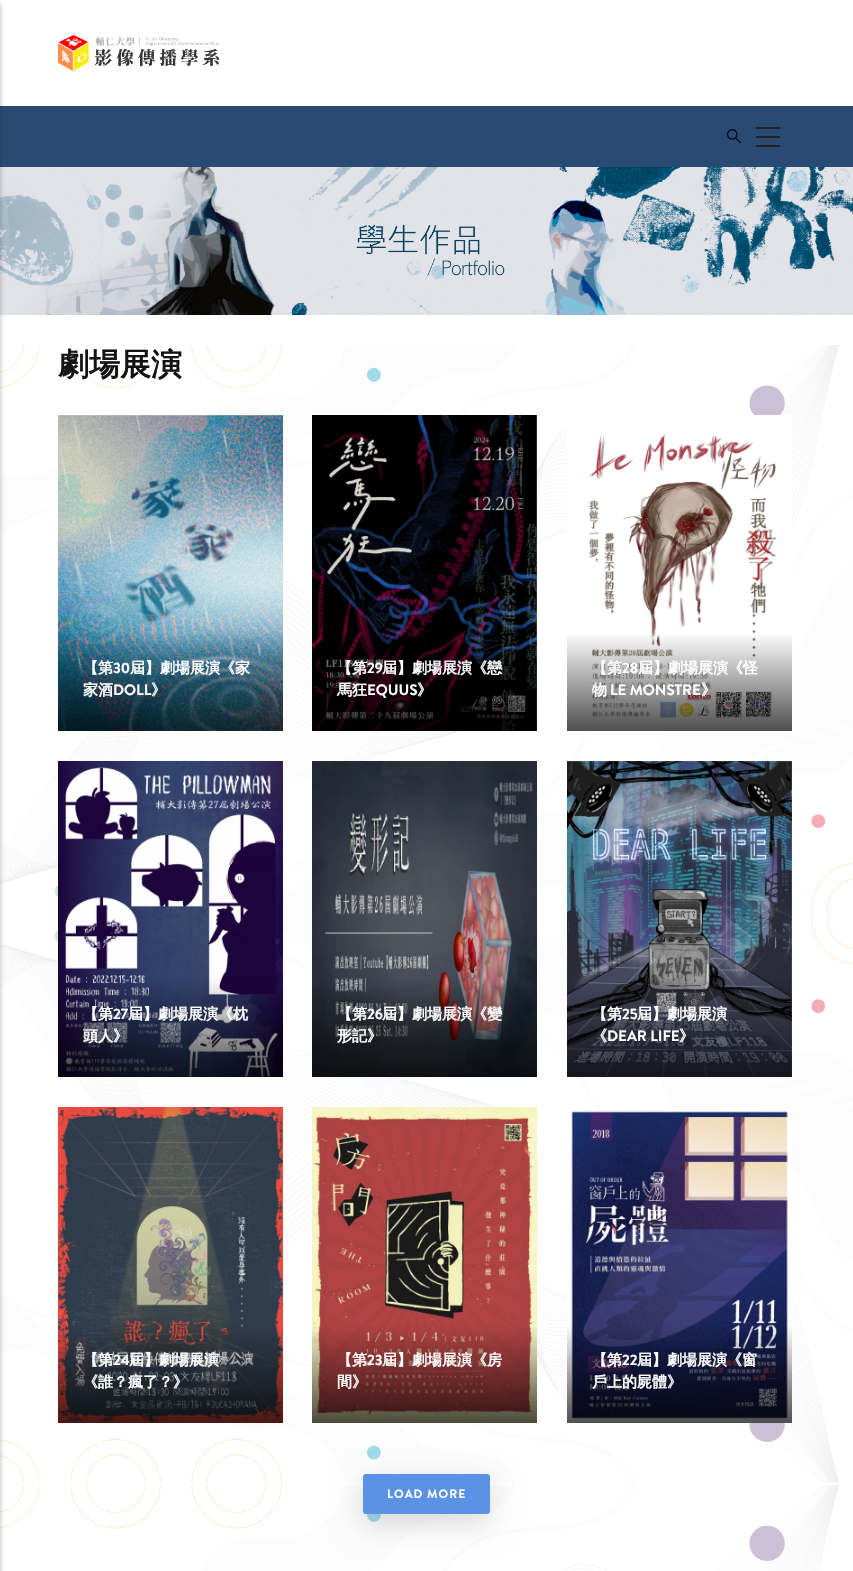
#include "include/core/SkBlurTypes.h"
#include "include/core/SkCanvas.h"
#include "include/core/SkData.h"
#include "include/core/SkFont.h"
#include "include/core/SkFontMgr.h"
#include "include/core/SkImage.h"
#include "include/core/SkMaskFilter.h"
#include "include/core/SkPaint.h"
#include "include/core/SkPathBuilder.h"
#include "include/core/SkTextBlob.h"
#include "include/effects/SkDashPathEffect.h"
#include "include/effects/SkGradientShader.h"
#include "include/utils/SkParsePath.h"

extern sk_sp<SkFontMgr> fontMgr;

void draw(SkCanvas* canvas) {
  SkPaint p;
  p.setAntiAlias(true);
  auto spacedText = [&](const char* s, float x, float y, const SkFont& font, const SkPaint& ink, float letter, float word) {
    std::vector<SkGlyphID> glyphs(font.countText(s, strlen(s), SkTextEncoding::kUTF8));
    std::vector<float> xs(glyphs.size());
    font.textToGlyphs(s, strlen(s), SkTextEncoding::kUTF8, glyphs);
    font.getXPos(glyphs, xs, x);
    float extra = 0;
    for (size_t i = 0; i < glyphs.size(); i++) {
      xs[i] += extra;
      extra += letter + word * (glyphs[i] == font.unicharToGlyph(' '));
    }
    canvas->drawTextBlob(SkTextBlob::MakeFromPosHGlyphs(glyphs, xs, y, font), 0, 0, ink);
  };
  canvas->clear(SK_ColorWHITE);
  p.setColor(SkColorSetRGB(41, 75, 115));
  canvas->drawRect(SkRect::MakeLTRB(0, 107, 853, 167), p);
  p.setColor(SkColorSetRGB(39, 71, 108));
  canvas->drawRect(SkRect::MakeLTRB(0, 106, 853, 107), p);
  canvas->drawImageRect(SkImages::DeferredFromEncodedData(SkData::MakeFromFileName("images/3.png")), SkRect::MakeLTRB(0, 167, 853, 315), SkSamplingOptions());
  canvas->drawImageRect(SkImages::DeferredFromEncodedData(SkData::MakeFromFileName("images/4.png")), SkRect::MakeLTRB(0, 345, 853, 1571), SkSamplingOptions());
  p.setColor(SkColorSetARGB(51, 0, 0, 0));
  p.setMaskFilter(SkMaskFilter::MakeBlur(kNormal_SkBlurStyle, 2));
  canvas->drawRect(SkRect::MakeLTRB(-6, 3, 1, 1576), p);
  p.setMaskFilter(nullptr);
  canvas->drawImageRect(SkImages::DeferredFromEncodedData(SkData::MakeFromFileName("images/1.png")), SkRect::MakeLTRB(727, 129, 741, 144), SkSamplingOptions());
  p.setColor(SkColorSetRGB(34, 34, 34));
  canvas->drawRect(SkRect::MakeLTRB(756, 127, 780, 129), p);
  canvas->drawRect(SkRect::MakeLTRB(756, 136, 780, 138), p);
  canvas->drawRect(SkRect::MakeLTRB(756, 145, 780, 147), p);
  canvas->drawImageRect(SkImages::DeferredFromEncodedData(SkData::MakeFromFileName("images/2.png")), SkRect::MakeLTRB(58, 35, 219, 71), SkSamplingOptions());
  canvas->drawImageRect(SkImages::DeferredFromEncodedData(SkData::MakeFromFileName("images/5.png")), SkRect::MakeLTRB(58, 415, 283, 731), SkSamplingOptions());
  canvas->drawImageRect(SkImages::DeferredFromEncodedData(SkData::MakeFromFileName("images/6.png")), SkRect::MakeLTRB(312, 415, 537, 731), SkSamplingOptions());
  canvas->drawImageRect(SkImages::DeferredFromEncodedData(SkData::MakeFromFileName("images/7.png")), SkRect::MakeLTRB(567, 415, 792, 728), SkSamplingOptions());
  {
    const SkColor colors[] = {SkColorSetARGB(176, 0, 0, 0), SkColorSetARGB(0, 0, 0, 0)};
    const float stops[] = {0, 1};
    const SkPoint ends[] = {{680, 731}, {680, 632}};
    p.setShader(SkGradientShader::MakeLinear(ends, colors, stops, 2, SkTileMode::kClamp));
    p.setAlpha(255);
  }
  canvas->drawRect(SkRect::MakeLTRB(567, 635, 792, 731), p);
  canvas->drawImageRect(SkImages::DeferredFromEncodedData(SkData::MakeFromFileName("images/8.png")), SkRect::MakeLTRB(58, 761, 283, 1077), SkSamplingOptions());
  canvas->drawImageRect(SkImages::DeferredFromEncodedData(SkData::MakeFromFileName("images/9.png")), SkRect::MakeLTRB(312, 761, 537, 1077), SkSamplingOptions());
  canvas->drawImageRect(SkImages::DeferredFromEncodedData(SkData::MakeFromFileName("images/10.png")), SkRect::MakeLTRB(567, 761, 792, 1077), SkSamplingOptions());
  canvas->drawImageRect(SkImages::DeferredFromEncodedData(SkData::MakeFromFileName("images/11.png")), SkRect::MakeLTRB(58, 1107, 283, 1423), SkSamplingOptions());
  canvas->drawImageRect(SkImages::DeferredFromEncodedData(SkData::MakeFromFileName("images/12.png")), SkRect::MakeLTRB(312, 1107, 537, 1423), SkSamplingOptions());
  canvas->drawImageRect(SkImages::DeferredFromEncodedData(SkData::MakeFromFileName("images/13.png")), SkRect::MakeLTRB(567, 1110, 792, 1423), SkSamplingOptions());
  p.setShader(nullptr);
  p.setColor(SkColorSetARGB(38, 0, 0, 0));
  p.setMaskFilter(SkMaskFilter::MakeBlur(kNormal_SkBlurStyle, 15));
  canvas->drawRoundRect(SkRect::MakeLTRB(363, 1484, 490, 1524), 3, 3, p);
  p.setMaskFilter(nullptr);
  p.setColor(SkColorSetRGB(91, 146, 229));
  canvas->drawRoundRect(SkRect::MakeLTRB(363, 1474, 490, 1514), 3, 3, p);
  SkFont font1(fontMgr->matchFamilyStyle("WenQuanYi Zen Hei", SkFontStyle::Bold()), 31);
  font1.setSubpixel(true);
  p.setColor(SkColorSetRGB(20, 20, 20));
  canvas->drawString("劇場展演", 58, 375, font1, p);
  SkFont font2(fontMgr->matchFamilyStyle("WenQuanYi Zen Hei", SkFontStyle::Bold()), 15);
  font2.setSubpixel(true);
  p.setColor(SK_ColorWHITE);
  canvas->drawString("【第", 83, 673, font2, p);
  SkFont font3(fontMgr->matchFamilyStyle("Brandon Grotesque", SkFontStyle::Bold()), 15);
  font3.setSubpixel(true);
  canvas->drawString("30", 113, 673, font3, p);
  canvas->drawString("屆】劇場展演《家", 130, 673, font2, p);
  canvas->drawString("家酒", 83, 695, font2, p);
  canvas->drawString("DOLL", 113, 695, font3, p);
  canvas->drawString("》", 151, 695, font2, p);
  canvas->drawString("【第", 337, 673, font2, p);
  canvas->drawString("29", 367, 673, font3, p);
  canvas->drawString("屆】劇場展演《戀", 382, 673, font2, p);
  canvas->drawString("馬狂", 337, 695, font2, p);
  canvas->drawString("EQUUS", 367, 695, font3, p);
  canvas->drawString("》", 417, 695, font2, p);
  canvas->drawString("【第", 592, 673, font2, p);
  canvas->drawString("28", 622, 673, font3, p);
  canvas->drawString("屆】劇場展演《怪", 638, 673, font2, p);
  canvas->drawString("物", 592, 695, font2, p);
  canvas->drawString("LE MONSTRE", 610, 695, font3, p);
  canvas->drawString("》", 701, 695, font2, p);
  canvas->drawString("【第", 83, 1019, font2, p);
  canvas->drawString("27", 113, 1019, font3, p);
  canvas->drawString("屆】劇場展演《枕", 128, 1019, font2, p);
  canvas->drawString("頭人》", 83, 1041, font2, p);
  canvas->drawString("【第", 337, 1019, font2, p);
  canvas->drawString("26", 367, 1019, font3, p);
  canvas->drawString("屆】劇場展演《變", 382, 1019, font2, p);
  canvas->drawString("形記》", 337, 1041, font2, p);
  canvas->drawString("【第", 592, 1019, font2, p);
  canvas->drawString("25", 622, 1019, font3, p);
  canvas->drawString("屆】劇場展演", 637, 1019, font2, p);
  canvas->drawString("《", 592, 1041, font2, p);
  canvas->drawString("DEAR LIFE", 607, 1041, font3, p);
  canvas->drawString("》", 679, 1041, font2, p);
  canvas->drawString("【第", 83, 1365, font2, p);
  canvas->drawString("24", 113, 1365, font3, p);
  canvas->drawString("屆】劇場展演", 129, 1365, font2, p);
  canvas->drawString("《誰？瘋了？》", 83, 1387, font2, p);
  canvas->drawString("【第", 337, 1365, font2, p);
  canvas->drawString("23", 367, 1365, font3, p);
  canvas->drawString("屆】劇場展演《房", 382, 1365, font2, p);
  canvas->drawString("間》", 337, 1387, font2, p);
  canvas->drawString("【第", 592, 1365, font2, p);
  canvas->drawString("22", 622, 1365, font3, p);
  canvas->drawString("屆】劇場展演《窗", 637, 1365, font2, p);
  canvas->drawString("戶上的屍體》", 592, 1387, font2, p);
  SkFont font4(fontMgr->matchFamilyStyle("Brandon Grotesque", SkFontStyle::Bold()), 12);
  font4.setSubpixel(true);
  spacedText("LOAD MORE", 387, 1498, font4, p, 1, 0);
}
